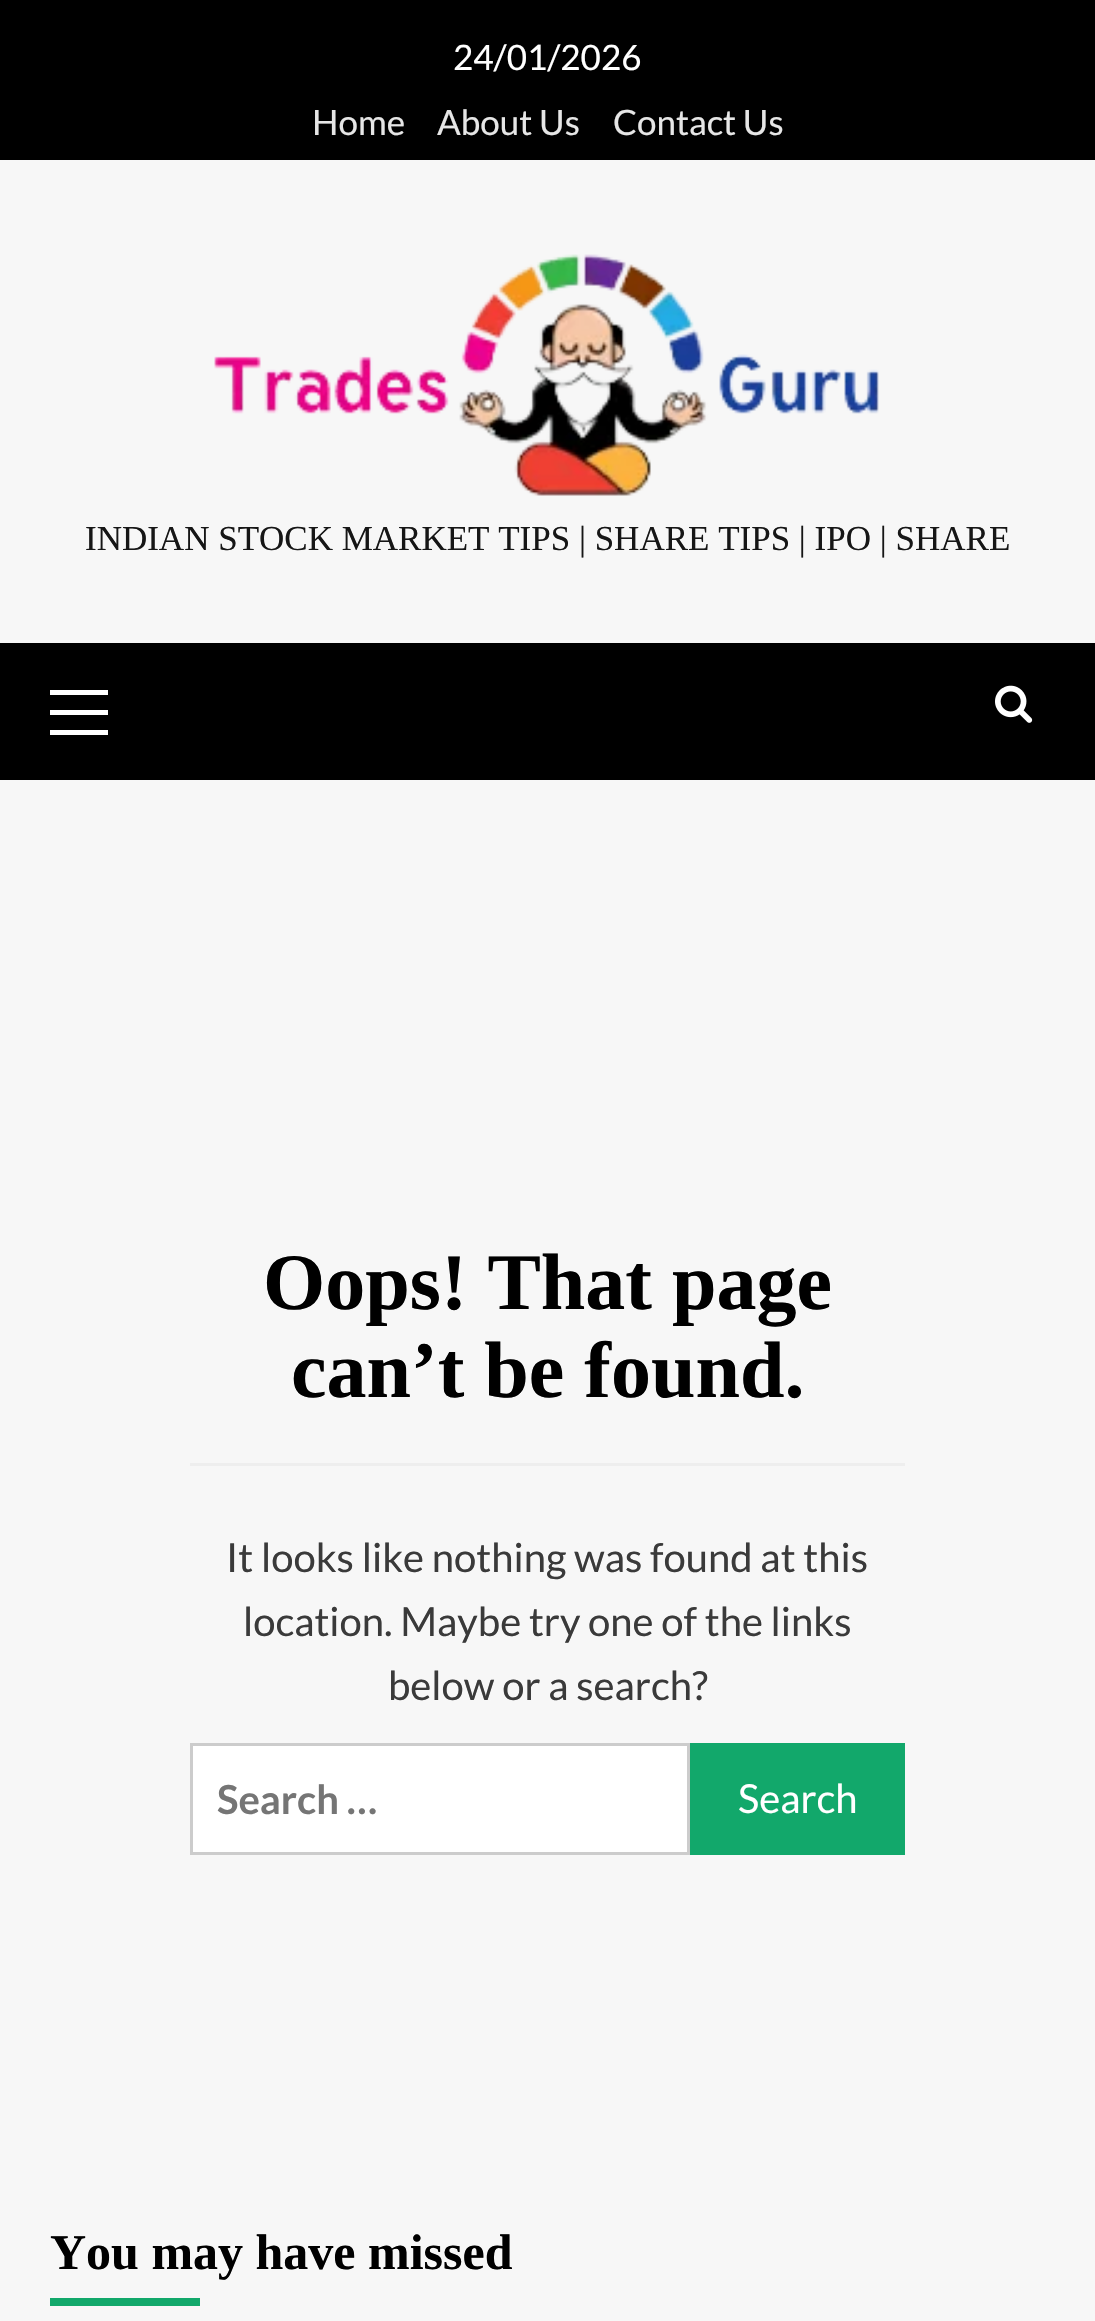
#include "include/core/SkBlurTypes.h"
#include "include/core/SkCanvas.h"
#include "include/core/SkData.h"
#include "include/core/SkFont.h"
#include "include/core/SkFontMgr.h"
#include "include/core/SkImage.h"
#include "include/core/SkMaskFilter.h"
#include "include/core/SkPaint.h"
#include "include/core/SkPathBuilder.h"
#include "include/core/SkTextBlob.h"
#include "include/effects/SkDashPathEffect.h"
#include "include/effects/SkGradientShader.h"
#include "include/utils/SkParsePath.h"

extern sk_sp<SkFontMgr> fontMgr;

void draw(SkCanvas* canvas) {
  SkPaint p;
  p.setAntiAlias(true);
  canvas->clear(SkColorSetRGB(247, 247, 247));
  p.setColor(SK_ColorBLACK);
  canvas->drawRect(SkRect::MakeLTRB(0, 0, 1095, 160), p);
  canvas->drawImageRect(SkImages::DeferredFromEncodedData(SkData::MakeFromFileName("images/1.png")), SkRect::MakeLTRB(214, 254, 879, 496), SkSamplingOptions());
  canvas->drawRect(SkRect::MakeLTRB(0, 643, 1095, 780), p);
  p.setColor(SK_ColorWHITE);
  canvas->drawRect(SkRect::MakeLTRB(50, 710, 108, 715), p);
  canvas->drawRect(SkRect::MakeLTRB(50, 690, 108, 695), p);
  canvas->drawRect(SkRect::MakeLTRB(50, 730, 108, 735), p);
  canvas->drawImageRect(SkImages::DeferredFromEncodedData(SkData::MakeFromFileName("images/2.png")), SkRect::MakeLTRB(995, 685, 1033, 723), SkSamplingOptions());
  p.setColor(SkColorSetRGB(238, 238, 238));
  canvas->drawRect(SkRect::MakeLTRB(190, 1463, 905, 1466), p);
  p.setColor(SK_ColorWHITE);
  canvas->drawRect(SkRect::MakeLTRB(191.5f, 1744.5f, 688.5f, 1853.5f), p);
  p.setStyle(SkPaint::kStroke_Style);
  p.setStrokeWidth(3);
  p.setColor(SkColorSetRGB(204, 204, 204));
  canvas->drawRect(SkRect::MakeLTRB(191.5f, 1744.5f, 688.5f, 1853.5f), p);
  p.setStyle(SkPaint::kFill_Style);
  p.setColor(SkColorSetRGB(18, 168, 107));
  canvas->drawRect(SkRect::MakeLTRB(690, 1743, 905, 1855), p);
  canvas->drawRect(SkRect::MakeLTRB(50, 2298, 200, 2306), p);
  SkFont font1(fontMgr->matchFamilyStyle("Lato", SkFontStyle::Normal()), 35);
  font1.setSubpixel(true);
  p.setColor(SK_ColorWHITE);
  canvas->drawString("24/01/2026", 453, 70, font1, p);
  p.setColor(SkColorSetRGB(230, 230, 230));
  canvas->drawString("Home", 312, 135, font1, p);
  canvas->drawString("About Us", 437, 135, font1, p);
  canvas->drawString("Contact Us", 613, 135, font1, p);
  SkFont font2(fontMgr->matchFamilyStyle("Liberation Serif", SkFontStyle::Normal()), 35);
  font2.setSubpixel(true);
  p.setColor(SkColorSetRGB(22, 22, 22));
  canvas->drawString("INDIAN STOCK MARKET TIPS | SHARE TIPS | IPO | SHARE", 85, 550, font2, p);
  SkFont font3(fontMgr->matchFamilyStyle("Liberation Serif", SkFontStyle::Bold()), 80);
  font3.setSubpixel(true);
  p.setColor(SK_ColorBLACK);
  canvas->drawString("Oops! That page", 263, 1309, font3, p);
  canvas->drawString("can’t be found.", 291, 1397, font3, p);
  SkFont font4(fontMgr->matchFamilyStyle("Lato", SkFontStyle::Normal()), 40);
  font4.setSubpixel(true);
  p.setColor(SkColorSetRGB(58, 58, 58));
  canvas->drawString("It looks like nothing was found at this", 226, 1572, font4, p);
  canvas->drawString("location. Maybe try one of the links", 243, 1636, font4, p);
  canvas->drawString("below or a search?", 388, 1700, font4, p);
  SkFont font5(fontMgr->matchFamilyStyle("Lato", SkFontStyle::Bold()), 40);
  font5.setSubpixel(true);
  p.setColor(SkColorSetRGB(117, 117, 117));
  canvas->drawString("Search …", 217, 1814, font5, p);
  p.setColor(SK_ColorWHITE);
  canvas->drawString("Search", 738, 1813, font4, p);
  SkFont font6(fontMgr->matchFamilyStyle("Liberation Serif", SkFontStyle::Bold()), 50);
  font6.setSubpixel(true);
  p.setColor(SK_ColorBLACK);
  canvas->drawString("You may have missed", 50, 2269, font6, p);
}
